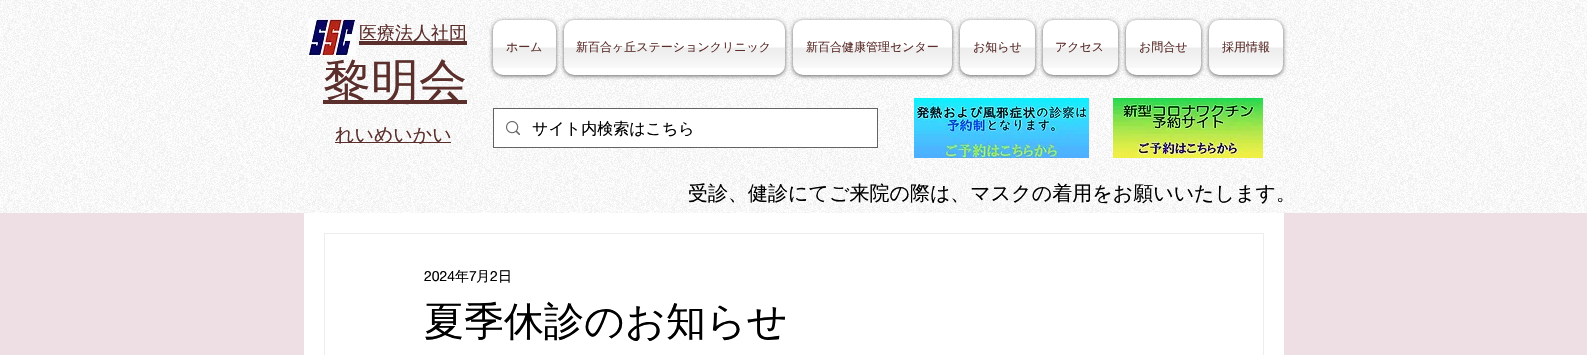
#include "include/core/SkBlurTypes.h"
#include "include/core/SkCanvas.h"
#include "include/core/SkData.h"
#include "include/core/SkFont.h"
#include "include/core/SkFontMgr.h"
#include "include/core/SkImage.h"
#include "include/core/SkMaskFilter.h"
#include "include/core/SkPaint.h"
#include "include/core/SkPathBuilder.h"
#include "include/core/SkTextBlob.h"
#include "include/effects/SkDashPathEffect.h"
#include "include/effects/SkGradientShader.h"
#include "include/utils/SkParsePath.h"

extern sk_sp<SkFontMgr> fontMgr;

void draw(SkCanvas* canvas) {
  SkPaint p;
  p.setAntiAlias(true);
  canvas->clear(SkColorSetRGB(237, 223, 228));
  p.setColor(SK_ColorWHITE);
  canvas->drawRect(SkRect::MakeLTRB(0, 0, 1587, 213), p);
  canvas->drawImageRect(SkImages::DeferredFromEncodedData(SkData::MakeFromFileName("images/1.png")), SkRect::MakeLTRB(0, 0, 1587, 213), SkSamplingOptions());
  canvas->drawImageRect(SkImages::DeferredFromEncodedData(SkData::MakeFromFileName("images/2.png")), SkRect::MakeLTRB(308, 19, 356, 56), SkSamplingOptions());
  p.setColor(SkColorSetRGB(91, 47, 44));
  canvas->drawRect(SkRect::MakeLTRB(359, 41, 467, 45), p);
  canvas->drawRect(SkRect::MakeLTRB(323, 100, 467, 104), p);
  canvas->drawRect(SkRect::MakeLTRB(335, 142, 451, 143), p);
  p.setColor(SkColorSetARGB(153, 0, 0, 0));
  p.setMaskFilter(SkMaskFilter::MakeBlur(kNormal_SkBlurStyle, 2));
  canvas->drawRoundRect(SkRect::MakeLTRB(493, 21, 556, 76), 10, 10, p);
  p.setMaskFilter(nullptr);
  p.setColor(SK_ColorWHITE);
  canvas->drawRoundRect(SkRect::MakeLTRB(493, 20, 556, 75), 10, 10, p);
  canvas->drawImageRect(SkImages::DeferredFromEncodedData(SkData::MakeFromFileName("images/3.png")), SkRect::MakeLTRB(493, 47, 556, 68), SkSamplingOptions());
  p.setColor(SkColorSetARGB(153, 0, 0, 0));
  p.setMaskFilter(SkMaskFilter::MakeBlur(kNormal_SkBlurStyle, 2));
  canvas->drawRoundRect(SkRect::MakeLTRB(564, 21, 785, 76), 10, 10, p);
  p.setMaskFilter(nullptr);
  p.setColor(SK_ColorWHITE);
  canvas->drawRoundRect(SkRect::MakeLTRB(564, 20, 785, 75), 10, 10, p);
  canvas->drawImageRect(SkImages::DeferredFromEncodedData(SkData::MakeFromFileName("images/4.png")), SkRect::MakeLTRB(564, 47, 785, 68), SkSamplingOptions());
  p.setColor(SkColorSetARGB(153, 0, 0, 0));
  p.setMaskFilter(SkMaskFilter::MakeBlur(kNormal_SkBlurStyle, 2));
  canvas->drawRoundRect(SkRect::MakeLTRB(793, 21, 952, 76), 10, 10, p);
  p.setMaskFilter(nullptr);
  p.setColor(SK_ColorWHITE);
  canvas->drawRoundRect(SkRect::MakeLTRB(793, 20, 952, 75), 10, 10, p);
  canvas->drawImageRect(SkImages::DeferredFromEncodedData(SkData::MakeFromFileName("images/5.png")), SkRect::MakeLTRB(793, 47, 952, 68), SkSamplingOptions());
  p.setColor(SkColorSetARGB(153, 0, 0, 0));
  p.setMaskFilter(SkMaskFilter::MakeBlur(kNormal_SkBlurStyle, 2));
  canvas->drawRoundRect(SkRect::MakeLTRB(960, 21, 1035, 76), 10, 10, p);
  p.setMaskFilter(nullptr);
  p.setColor(SK_ColorWHITE);
  canvas->drawRoundRect(SkRect::MakeLTRB(960, 20, 1035, 75), 10, 10, p);
  canvas->drawImageRect(SkImages::DeferredFromEncodedData(SkData::MakeFromFileName("images/6.png")), SkRect::MakeLTRB(960, 47, 1035, 68), SkSamplingOptions());
  p.setColor(SkColorSetARGB(153, 0, 0, 0));
  p.setMaskFilter(SkMaskFilter::MakeBlur(kNormal_SkBlurStyle, 2));
  canvas->drawRoundRect(SkRect::MakeLTRB(1043, 21, 1118, 76), 10, 10, p);
  p.setMaskFilter(nullptr);
  p.setColor(SK_ColorWHITE);
  canvas->drawRoundRect(SkRect::MakeLTRB(1043, 20, 1118, 75), 10, 10, p);
  canvas->drawImageRect(SkImages::DeferredFromEncodedData(SkData::MakeFromFileName("images/7.png")), SkRect::MakeLTRB(1043, 47, 1118, 68), SkSamplingOptions());
  p.setColor(SkColorSetARGB(153, 0, 0, 0));
  p.setMaskFilter(SkMaskFilter::MakeBlur(kNormal_SkBlurStyle, 2));
  canvas->drawRoundRect(SkRect::MakeLTRB(1126, 21, 1201, 76), 10, 10, p);
  p.setMaskFilter(nullptr);
  p.setColor(SK_ColorWHITE);
  canvas->drawRoundRect(SkRect::MakeLTRB(1126, 20, 1201, 75), 10, 10, p);
  canvas->drawImageRect(SkImages::DeferredFromEncodedData(SkData::MakeFromFileName("images/8.png")), SkRect::MakeLTRB(1126, 47, 1201, 68), SkSamplingOptions());
  p.setColor(SkColorSetARGB(153, 0, 0, 0));
  p.setMaskFilter(SkMaskFilter::MakeBlur(kNormal_SkBlurStyle, 2));
  canvas->drawRoundRect(SkRect::MakeLTRB(1209, 21, 1283, 76), 10, 10, p);
  p.setMaskFilter(nullptr);
  p.setColor(SK_ColorWHITE);
  canvas->drawRoundRect(SkRect::MakeLTRB(1209, 20, 1283, 75), 10, 10, p);
  canvas->drawImageRect(SkImages::DeferredFromEncodedData(SkData::MakeFromFileName("images/9.png")), SkRect::MakeLTRB(1209, 47, 1283, 68), SkSamplingOptions());
  p.setStyle(SkPaint::kStroke_Style);
  p.setStrokeWidth(1);
  p.setColor(SkColorSetARGB(153, 0, 0, 0));
  canvas->drawRect(SkRect::MakeLTRB(493.5f, 108.5f, 877.5f, 147.5f), p);
  p.setStyle(SkPaint::kFill_Style);
  p.setColor(SK_ColorWHITE);
  canvas->drawRect(SkRect::MakeLTRB(494, 109, 877, 147), p);
  canvas->drawImageRect(SkImages::DeferredFromEncodedData(SkData::MakeFromFileName("images/10.png")), SkRect::MakeLTRB(506, 121, 520, 135), SkSamplingOptions());
  canvas->drawImageRect(SkImages::DeferredFromEncodedData(SkData::MakeFromFileName("images/11.png")), SkRect::MakeLTRB(914, 98, 1089, 158), SkSamplingOptions());
  canvas->drawImageRect(SkImages::DeferredFromEncodedData(SkData::MakeFromFileName("images/12.png")), SkRect::MakeLTRB(1113, 98, 1263, 158), SkSamplingOptions());
  canvas->drawRect(SkRect::MakeLTRB(304, 213, 1284, 355), p);
  p.setStyle(SkPaint::kStroke_Style);
  p.setColor(SkColorSetRGB(238, 236, 236));
  canvas->drawRect(SkRect::MakeLTRB(324.5f, 233.5f, 1263.5f, 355.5f), p);
  SkFont font1(fontMgr->matchFamilyStyle("WenQuanYi Zen Hei", SkFontStyle(500, SkFontStyle::kNormal_Width, SkFontStyle::kUpright_Slant)), 18);
  font1.setSubpixel(true);
  p.setStyle(SkPaint::kFill_Style);
  p.setColor(SkColorSetRGB(91, 47, 44));
  canvas->drawString("医療法人社団", 359, 39, font1, p);
  SkFont font2(fontMgr->matchFamilyStyle("WenQuanYi Zen Hei", SkFontStyle(500, SkFontStyle::kNormal_Width, SkFontStyle::kUpright_Slant)), 48);
  font2.setSubpixel(true);
  canvas->drawString("黎明会", 323, 98, font2, p);
  SkFont font3(fontMgr->matchFamilyStyle("WenQuanYi Zen Hei", SkFontStyle(500, SkFontStyle::kNormal_Width, SkFontStyle::kUpright_Slant)), 19);
  font3.setSubpixel(true);
  canvas->drawString("れいめいかい", 335, 141, font3, p);
  SkFont font4(fontMgr->matchFamilyStyle("WenQuanYi Zen Hei", SkFontStyle(500, SkFontStyle::kNormal_Width, SkFontStyle::kUpright_Slant)), 12);
  font4.setSubpixel(true);
  canvas->drawString("ホーム", 506, 51, font4, p);
  canvas->drawString("新百合ヶ丘ステーションクリニック", 576, 51, font4, p);
  canvas->drawString("新百合健康管理センター", 806, 51, font4, p);
  canvas->drawString("お知らせ", 973, 51, font4, p);
  canvas->drawString("アクセス", 1055, 51, font4, p);
  canvas->drawString("お問合せ", 1139, 51, font4, p);
  canvas->drawString("採用情報", 1222, 51, font4, p);
  SkFont font5(fontMgr->matchFamilyStyle("WenQuanYi Zen Hei", SkFontStyle(500, SkFontStyle::kNormal_Width, SkFontStyle::kUpright_Slant)), 16);
  font5.setSubpixel(true);
  p.setColor(SK_ColorBLACK);
  canvas->drawString("サイト内検索はこちら", 532, 134, font5, p);
  SkFont font6(fontMgr->matchFamilyStyle("WenQuanYi Zen Hei", SkFontStyle(500, SkFontStyle::kNormal_Width, SkFontStyle::kUpright_Slant)), 20);
  font6.setSubpixel(true);
  canvas->drawString("受診、健診にてご来院の際は、マスクの着用をお願いいたします。", 688, 200, font6, p);
  SkFont font7(fontMgr->matchFamilyStyle("helvetica neue", SkFontStyle::Normal()), 14);
  font7.setSubpixel(true);
  canvas->drawString("2024", 424, 281, font7, p);
  SkFont font8(fontMgr->matchFamilyStyle("WenQuanYi Zen Hei", SkFontStyle(500, SkFontStyle::kNormal_Width, SkFontStyle::kUpright_Slant)), 14);
  font8.setSubpixel(true);
  canvas->drawString("年", 455, 281, font8, p);
  canvas->drawString("7", 469, 281, font7, p);
  canvas->drawString("月", 476, 281, font8, p);
  canvas->drawString("2", 490, 281, font7, p);
  canvas->drawString("日", 498, 281, font8, p);
  SkFont font9(fontMgr->matchFamilyStyle("WenQuanYi Zen Hei", SkFontStyle(500, SkFontStyle::kNormal_Width, SkFontStyle::kUpright_Slant)), 40);
  font9.setSubpixel(true);
  canvas->drawString("夏季休診のお知らせ", 424, 335, font9, p);
}
